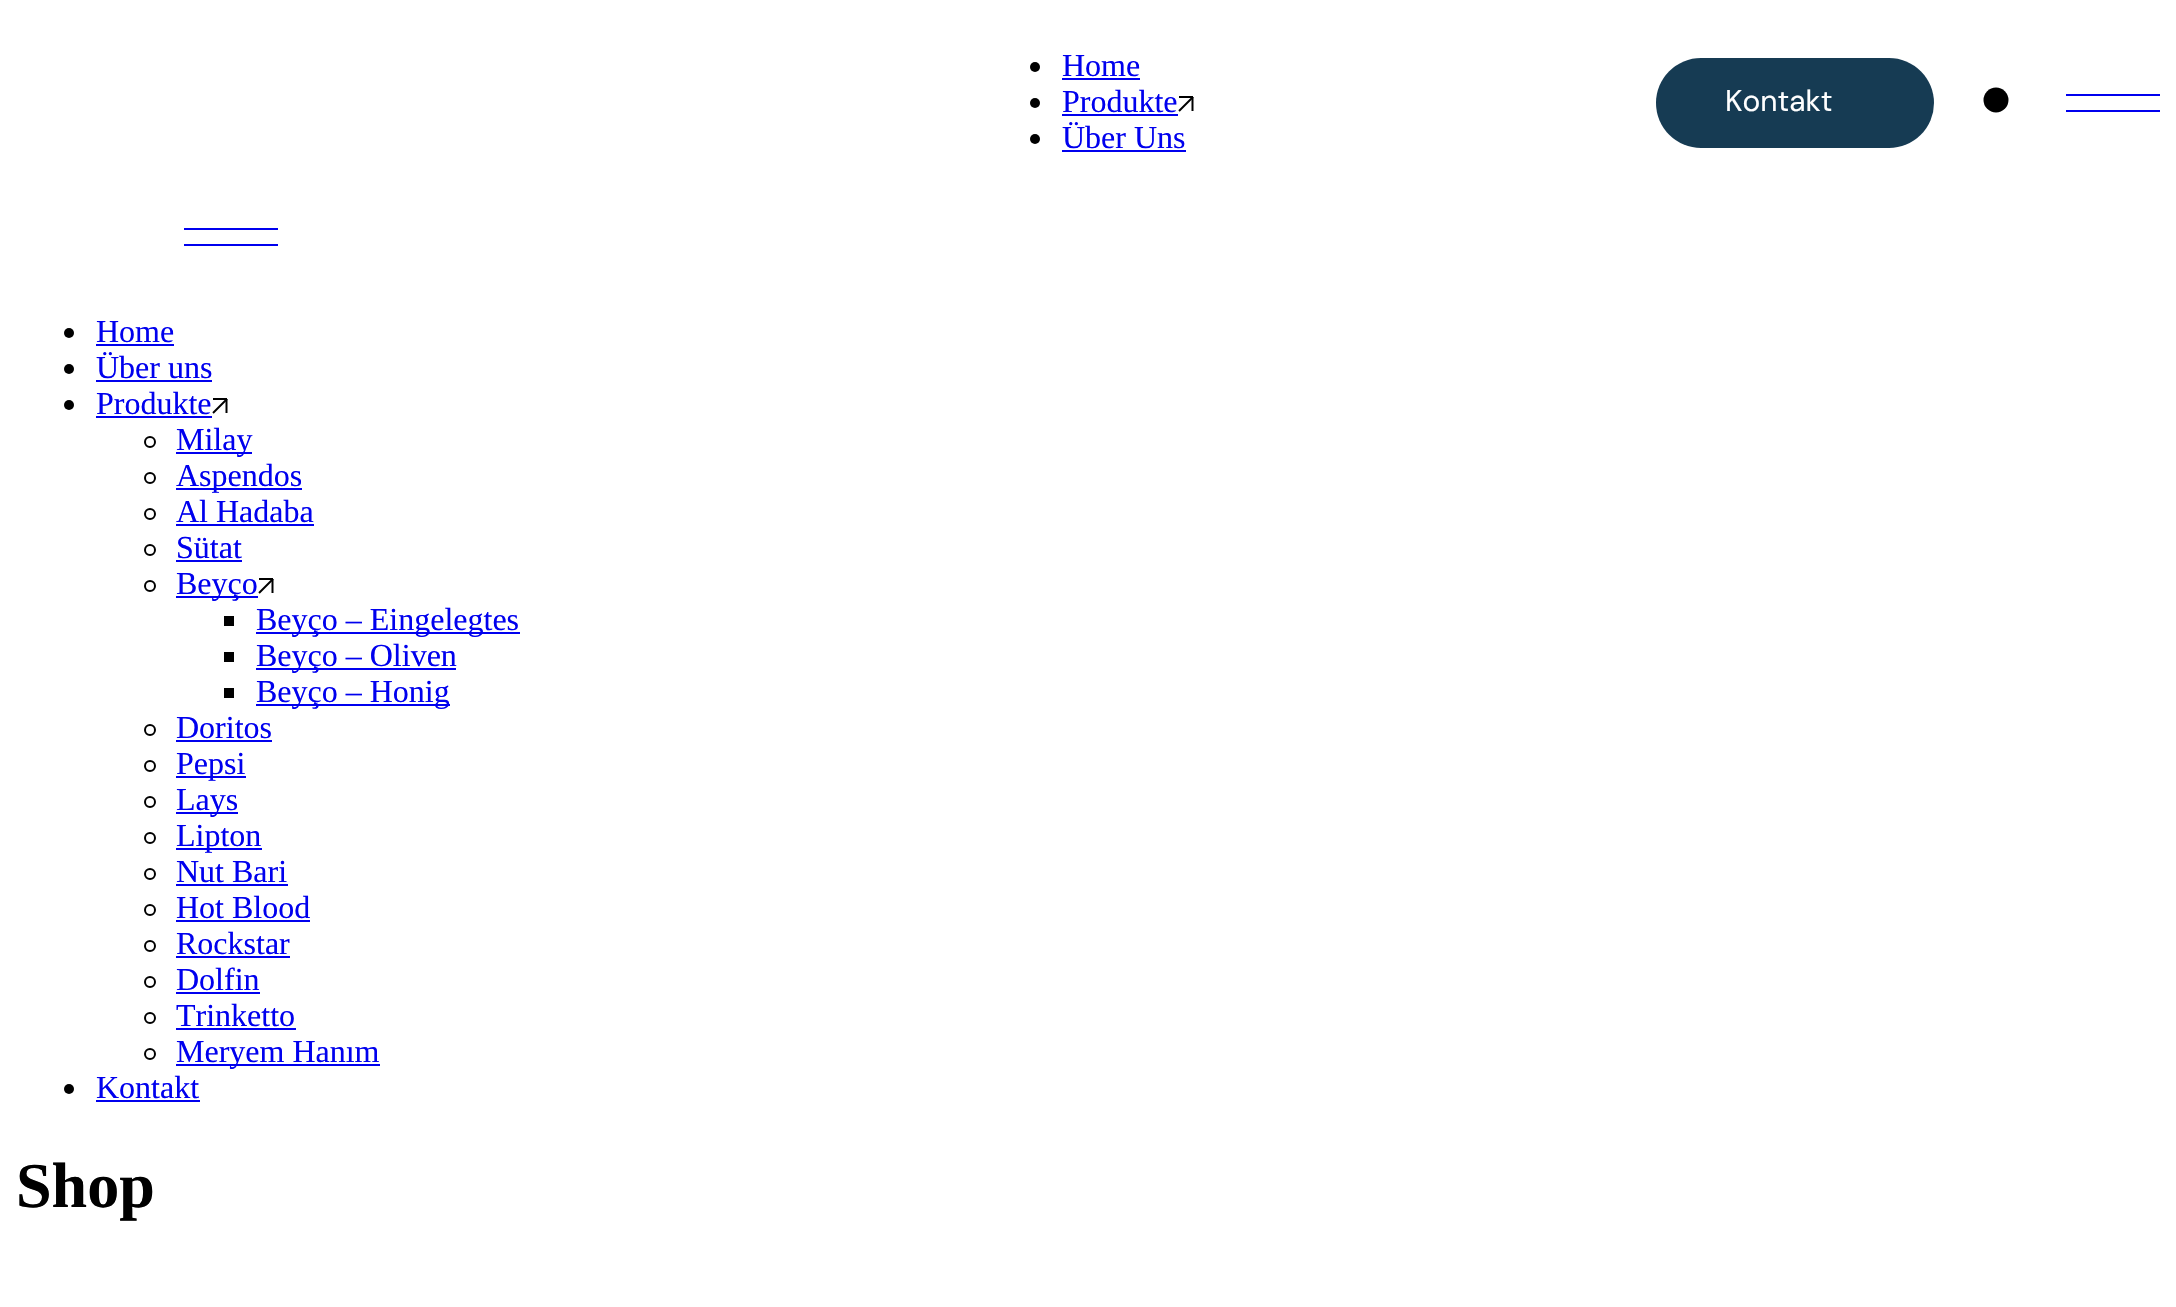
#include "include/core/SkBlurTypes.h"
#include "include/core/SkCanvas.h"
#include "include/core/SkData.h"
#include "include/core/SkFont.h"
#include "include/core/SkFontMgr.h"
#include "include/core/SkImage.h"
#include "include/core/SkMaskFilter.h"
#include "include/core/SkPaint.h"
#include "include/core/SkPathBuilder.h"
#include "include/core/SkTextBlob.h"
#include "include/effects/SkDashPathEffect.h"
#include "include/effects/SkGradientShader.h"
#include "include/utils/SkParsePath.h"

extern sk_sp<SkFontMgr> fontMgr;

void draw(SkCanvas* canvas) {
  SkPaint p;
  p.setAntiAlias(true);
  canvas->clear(SK_ColorWHITE);
  p.setColor(SK_ColorBLACK);
  canvas->drawCircle(1035, 67, 5, p);
  p.setColor(SkColorSetRGB(0, 0, 238));
  canvas->drawRect(SkRect::MakeLTRB(1062, 78, 1140, 80), p);
  canvas->drawRect(SkRect::MakeLTRB(1062, 114, 1178, 116), p);
  p.setStyle(SkPaint::kStroke_Style);
  p.setStrokeWidth(2);
  p.setColor(SK_ColorBLACK);
  canvas->drawPath(SkPathBuilder().moveTo(1179, 111).lineTo(1193, 97).detach(), p);
  p.setStyle(SkPaint::kFill_Style);
  canvas->drawRect(SkRect::MakeLTRB(1179, 96, 1193, 98), p);
  canvas->drawCircle(1035, 103, 5, p);
  p.setStyle(SkPaint::kStroke_Style);
  canvas->drawPath(SkPathBuilder().moveTo(1192.5f, 111).lineTo(1192.5f, 97).detach(), p);
  p.setStyle(SkPaint::kFill_Style);
  canvas->drawCircle(1035, 139, 5, p);
  p.setColor(SkColorSetRGB(0, 0, 238));
  canvas->drawRect(SkRect::MakeLTRB(1062, 150, 1186, 152), p);
  p.setColor(SkColorSetRGB(22, 59, 83));
  canvas->drawRoundRect(SkRect::MakeLTRB(1656, 58, 1934, 148), 45, 45, p);
  p.setColor(SK_ColorBLACK);
  canvas->drawCircle(1996, 100, 12.5f, p);
  p.setColor(SkColorSetRGB(0, 0, 238));
  canvas->drawRect(SkRect::MakeLTRB(2066, 94, 2160, 96), p);
  canvas->drawRect(SkRect::MakeLTRB(2066, 110, 2160, 112), p);
  canvas->drawRect(SkRect::MakeLTRB(184, 228, 278, 230), p);
  canvas->drawRect(SkRect::MakeLTRB(184, 244, 278, 246), p);
  p.setColor(SK_ColorBLACK);
  canvas->drawCircle(69, 333, 5, p);
  p.setColor(SkColorSetRGB(0, 0, 238));
  canvas->drawRect(SkRect::MakeLTRB(96, 344, 174, 346), p);
  p.setColor(SK_ColorBLACK);
  canvas->drawCircle(69, 369, 5, p);
  p.setColor(SkColorSetRGB(0, 0, 238));
  canvas->drawRect(SkRect::MakeLTRB(96, 380, 212, 382), p);
  canvas->drawRect(SkRect::MakeLTRB(96, 416, 212, 418), p);
  p.setStyle(SkPaint::kStroke_Style);
  p.setColor(SK_ColorBLACK);
  canvas->drawPath(SkPathBuilder().moveTo(213, 413).lineTo(227, 399).detach(), p);
  p.setStyle(SkPaint::kFill_Style);
  canvas->drawRect(SkRect::MakeLTRB(213, 398, 227, 400), p);
  canvas->drawCircle(69, 405, 5, p);
  p.setStyle(SkPaint::kStroke_Style);
  canvas->drawPath(SkPathBuilder().moveTo(226.5f, 413).lineTo(226.5f, 399).detach(), p);
  canvas->drawCircle(150, 442, 5, p);
  p.setStyle(SkPaint::kFill_Style);
  p.setColor(SkColorSetRGB(0, 0, 238));
  canvas->drawRect(SkRect::MakeLTRB(176, 452, 252, 454), p);
  p.setStyle(SkPaint::kStroke_Style);
  p.setColor(SK_ColorBLACK);
  canvas->drawCircle(150, 478, 5, p);
  p.setStyle(SkPaint::kFill_Style);
  p.setColor(SkColorSetRGB(0, 0, 238));
  canvas->drawRect(SkRect::MakeLTRB(176, 488, 302, 490), p);
  p.setStyle(SkPaint::kStroke_Style);
  p.setColor(SK_ColorBLACK);
  canvas->drawCircle(150, 514, 5, p);
  p.setStyle(SkPaint::kFill_Style);
  p.setColor(SkColorSetRGB(0, 0, 238));
  canvas->drawRect(SkRect::MakeLTRB(176, 524, 314, 526), p);
  p.setStyle(SkPaint::kStroke_Style);
  p.setColor(SK_ColorBLACK);
  canvas->drawCircle(150, 550, 5, p);
  p.setStyle(SkPaint::kFill_Style);
  p.setColor(SkColorSetRGB(0, 0, 238));
  canvas->drawRect(SkRect::MakeLTRB(176, 560, 242, 562), p);
  canvas->drawRect(SkRect::MakeLTRB(176, 596, 258, 598), p);
  p.setStyle(SkPaint::kStroke_Style);
  p.setColor(SK_ColorBLACK);
  canvas->drawPath(SkPathBuilder().moveTo(259, 593).lineTo(273, 579).detach(), p);
  p.setStyle(SkPaint::kFill_Style);
  canvas->drawRect(SkRect::MakeLTRB(259, 578, 273, 580), p);
  p.setStyle(SkPaint::kStroke_Style);
  canvas->drawCircle(150, 586, 5, p);
  canvas->drawPath(SkPathBuilder().moveTo(272.5f, 593).lineTo(272.5f, 579).detach(), p);
  p.setStyle(SkPaint::kFill_Style);
  canvas->drawRect(SkRect::MakeLTRB(224, 616, 234, 626), p);
  p.setColor(SkColorSetRGB(0, 0, 238));
  canvas->drawRect(SkRect::MakeLTRB(256, 632, 520, 634), p);
  p.setColor(SK_ColorBLACK);
  canvas->drawRect(SkRect::MakeLTRB(224, 652, 234, 662), p);
  p.setColor(SkColorSetRGB(0, 0, 238));
  canvas->drawRect(SkRect::MakeLTRB(256, 668, 456, 670), p);
  p.setColor(SK_ColorBLACK);
  canvas->drawRect(SkRect::MakeLTRB(224, 688, 234, 698), p);
  p.setColor(SkColorSetRGB(0, 0, 238));
  canvas->drawRect(SkRect::MakeLTRB(256, 704, 450, 706), p);
  p.setStyle(SkPaint::kStroke_Style);
  p.setColor(SK_ColorBLACK);
  canvas->drawCircle(150, 730, 5, p);
  p.setStyle(SkPaint::kFill_Style);
  p.setColor(SkColorSetRGB(0, 0, 238));
  canvas->drawRect(SkRect::MakeLTRB(176, 740, 272, 742), p);
  p.setStyle(SkPaint::kStroke_Style);
  p.setColor(SK_ColorBLACK);
  canvas->drawCircle(150, 766, 5, p);
  p.setStyle(SkPaint::kFill_Style);
  p.setColor(SkColorSetRGB(0, 0, 238));
  canvas->drawRect(SkRect::MakeLTRB(176, 776, 246, 778), p);
  p.setStyle(SkPaint::kStroke_Style);
  p.setColor(SK_ColorBLACK);
  canvas->drawCircle(150, 802, 5, p);
  p.setStyle(SkPaint::kFill_Style);
  p.setColor(SkColorSetRGB(0, 0, 238));
  canvas->drawRect(SkRect::MakeLTRB(176, 812, 238, 814), p);
  p.setStyle(SkPaint::kStroke_Style);
  p.setColor(SK_ColorBLACK);
  canvas->drawCircle(150, 838, 5, p);
  p.setStyle(SkPaint::kFill_Style);
  p.setColor(SkColorSetRGB(0, 0, 238));
  canvas->drawRect(SkRect::MakeLTRB(176, 848, 262, 850), p);
  p.setStyle(SkPaint::kStroke_Style);
  p.setColor(SK_ColorBLACK);
  canvas->drawCircle(150, 874, 5, p);
  p.setStyle(SkPaint::kFill_Style);
  p.setColor(SkColorSetRGB(0, 0, 238));
  canvas->drawRect(SkRect::MakeLTRB(176, 884, 288, 886), p);
  p.setStyle(SkPaint::kStroke_Style);
  p.setColor(SK_ColorBLACK);
  canvas->drawCircle(150, 910, 5, p);
  p.setStyle(SkPaint::kFill_Style);
  p.setColor(SkColorSetRGB(0, 0, 238));
  canvas->drawRect(SkRect::MakeLTRB(176, 920, 310, 922), p);
  p.setStyle(SkPaint::kStroke_Style);
  p.setColor(SK_ColorBLACK);
  canvas->drawCircle(150, 946, 5, p);
  p.setStyle(SkPaint::kFill_Style);
  p.setColor(SkColorSetRGB(0, 0, 238));
  canvas->drawRect(SkRect::MakeLTRB(176, 956, 290, 958), p);
  p.setStyle(SkPaint::kStroke_Style);
  p.setColor(SK_ColorBLACK);
  canvas->drawCircle(150, 982, 5, p);
  p.setStyle(SkPaint::kFill_Style);
  p.setColor(SkColorSetRGB(0, 0, 238));
  canvas->drawRect(SkRect::MakeLTRB(176, 992, 260, 994), p);
  p.setStyle(SkPaint::kStroke_Style);
  p.setColor(SK_ColorBLACK);
  canvas->drawCircle(150, 1018, 5, p);
  p.setStyle(SkPaint::kFill_Style);
  p.setColor(SkColorSetRGB(0, 0, 238));
  canvas->drawRect(SkRect::MakeLTRB(176, 1028, 296, 1030), p);
  p.setStyle(SkPaint::kStroke_Style);
  p.setColor(SK_ColorBLACK);
  canvas->drawCircle(150, 1054, 5, p);
  p.setStyle(SkPaint::kFill_Style);
  p.setColor(SkColorSetRGB(0, 0, 238));
  canvas->drawRect(SkRect::MakeLTRB(176, 1064, 380, 1066), p);
  p.setColor(SK_ColorBLACK);
  canvas->drawCircle(69, 1089, 5, p);
  p.setColor(SkColorSetRGB(0, 0, 238));
  canvas->drawRect(SkRect::MakeLTRB(96, 1100, 200, 1102), p);
  SkFont font1(fontMgr->matchFamilyStyle("Liberation Serif", SkFontStyle::Normal()), 32);
  font1.setSubpixel(true);
  canvas->drawString("Home", 1062, 76, font1, p);
  canvas->drawString("Produkte", 1062, 112, font1, p);
  canvas->drawString("Über Uns", 1062, 148, font1, p);
  SkFont font2(fontMgr->matchFamilyStyle("DM Sans", SkFontStyle::Normal()), 30);
  font2.setSubpixel(true);
  p.setColor(SK_ColorWHITE);
  canvas->drawString("Kontakt", 1725, 111, font2, p);
  p.setColor(SkColorSetRGB(0, 0, 238));
  canvas->drawString("Home", 96, 342, font1, p);
  canvas->drawString("Über uns", 96, 378, font1, p);
  canvas->drawString("Produkte", 96, 414, font1, p);
  canvas->drawString("Milay", 176, 450, font1, p);
  canvas->drawString("Aspendos", 176, 486, font1, p);
  canvas->drawString("Al Hadaba", 176, 522, font1, p);
  canvas->drawString("Sütat", 176, 558, font1, p);
  canvas->drawString("Beyço", 176, 594, font1, p);
  canvas->drawString("Beyço – Eingelegtes", 256, 630, font1, p);
  canvas->drawString("Beyço – Oliven", 256, 666, font1, p);
  canvas->drawString("Beyço – Honig", 256, 702, font1, p);
  canvas->drawString("Doritos", 176, 738, font1, p);
  canvas->drawString("Pepsi", 176, 774, font1, p);
  canvas->drawString("Lays", 176, 810, font1, p);
  canvas->drawString("Lipton", 176, 846, font1, p);
  canvas->drawString("Nut Bari", 176, 882, font1, p);
  canvas->drawString("Hot Blood", 176, 918, font1, p);
  canvas->drawString("Rockstar", 176, 954, font1, p);
  canvas->drawString("Dolfin", 176, 990, font1, p);
  canvas->drawString("Trinketto", 176, 1026, font1, p);
  canvas->drawString("Meryem Hanım", 176, 1062, font1, p);
  canvas->drawString("Kontakt", 96, 1098, font1, p);
  SkFont font3(fontMgr->matchFamilyStyle("Liberation Serif", SkFontStyle::Bold()), 64);
  font3.setSubpixel(true);
  p.setColor(SK_ColorBLACK);
  canvas->drawString("Shop", 16, 1207, font3, p);
}
